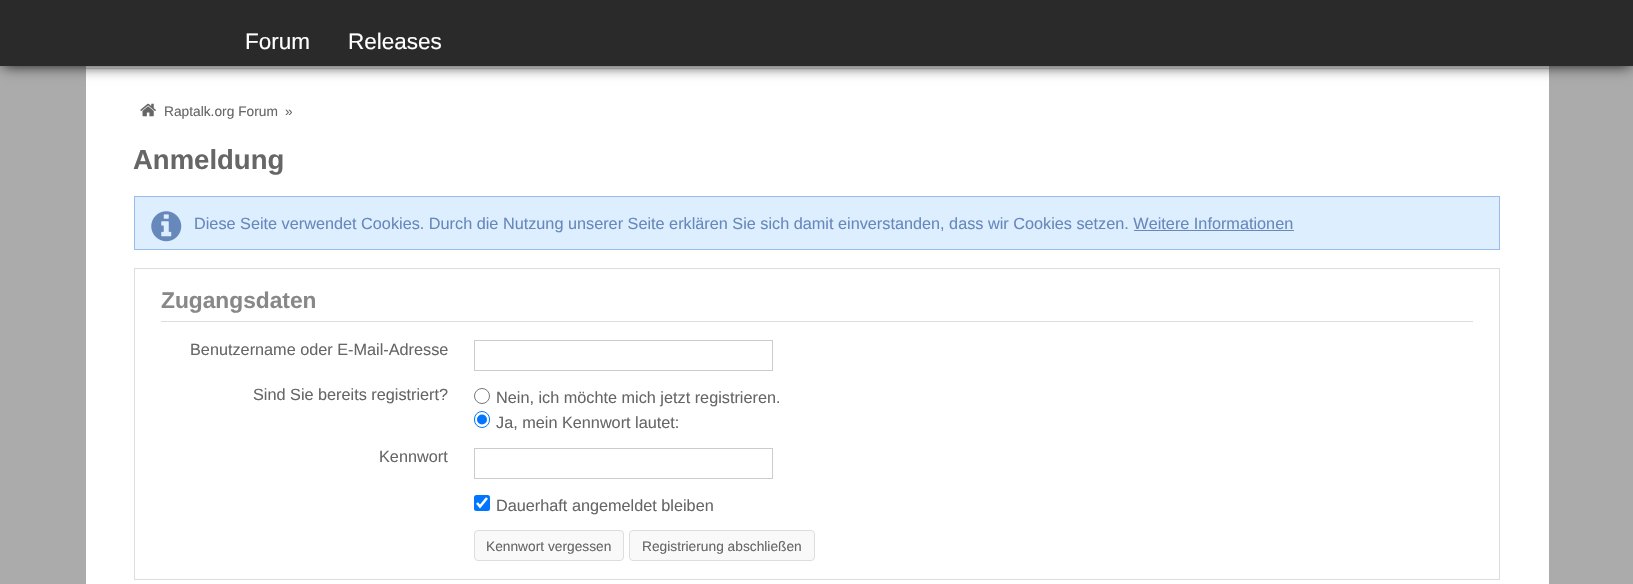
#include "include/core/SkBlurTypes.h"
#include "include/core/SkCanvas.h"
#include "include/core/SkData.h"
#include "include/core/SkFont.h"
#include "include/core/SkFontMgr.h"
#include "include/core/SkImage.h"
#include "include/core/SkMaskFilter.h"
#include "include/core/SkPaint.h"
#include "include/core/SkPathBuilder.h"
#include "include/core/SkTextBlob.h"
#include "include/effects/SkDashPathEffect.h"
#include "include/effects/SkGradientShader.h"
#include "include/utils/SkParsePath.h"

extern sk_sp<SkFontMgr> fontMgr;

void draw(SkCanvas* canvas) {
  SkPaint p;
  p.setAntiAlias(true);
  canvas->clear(SkColorSetRGB(171, 171, 171));
  p.setColor(SK_ColorWHITE);
  canvas->drawRect(SkRect::MakeLTRB(86, 66, 1549, 68), p);
  p.setColor(SkColorSetRGB(221, 221, 221));
  canvas->drawRect(SkRect::MakeLTRB(86, 68, 1549, 69), p);
  p.setColor(SK_ColorWHITE);
  canvas->drawRect(SkRect::MakeLTRB(86, 69, 1549, 584), p);
  p.setColor(SK_ColorBLACK);
  p.setMaskFilter(SkMaskFilter::MakeBlur(kNormal_SkBlurStyle, 7));
  canvas->drawRect(SkRect::MakeLTRB(3, 4, 1631, 65), p);
  p.setMaskFilter(nullptr);
  p.setColor(SkColorSetRGB(42, 42, 42));
  canvas->drawRect(SkRect::MakeLTRB(0, 0, 1633, 66), p);
  canvas->drawImageRect(SkImages::DeferredFromEncodedData(SkData::MakeFromFileName("images/1.png")), SkRect::MakeLTRB(140, 103, 156, 117), SkSamplingOptions());
  p.setColor(SkColorSetRGB(221, 238, 255));
  canvas->drawRect(SkRect::MakeLTRB(134.5f, 196.5f, 1499.5f, 249.5f), p);
  p.setStyle(SkPaint::kStroke_Style);
  p.setStrokeWidth(1);
  p.setColor(SkColorSetRGB(153, 187, 238));
  canvas->drawRect(SkRect::MakeLTRB(134.5f, 196.5f, 1499.5f, 249.5f), p);
  canvas->drawImageRect(SkImages::DeferredFromEncodedData(SkData::MakeFromFileName("images/2.png")), SkRect::MakeLTRB(151, 211, 182, 242), SkSamplingOptions());
  p.setStyle(SkPaint::kFill_Style);
  p.setColor(SkColorSetRGB(102, 136, 187));
  canvas->drawRect(SkRect::MakeLTRB(1134, 230, 1294, 231), p);
  p.setStyle(SkPaint::kStroke_Style);
  p.setColor(SkColorSetRGB(221, 221, 221));
  canvas->drawRect(SkRect::MakeLTRB(134.5f, 268.5f, 1499.5f, 579.5f), p);
  p.setStyle(SkPaint::kFill_Style);
  canvas->drawRect(SkRect::MakeLTRB(161, 321, 1473, 322), p);
  p.setStyle(SkPaint::kStroke_Style);
  p.setColor(SkColorSetRGB(204, 204, 204));
  canvas->drawRect(SkRect::MakeLTRB(474.5f, 340.5f, 772.5f, 370.5f), p);
  p.setColor(SkColorSetRGB(118, 118, 118));
  canvas->drawCircle(482, 396, 7.5f, p);
  p.setColor(SkColorSetRGB(0, 117, 255));
  canvas->drawRoundRect(SkRect::MakeLTRB(474.5f, 411.5f, 489.5f, 427.5f), 7.5f, 7.5f, p);
  p.setStyle(SkPaint::kFill_Style);
  canvas->drawCircle(482, 419.5f, 5, p);
  p.setStyle(SkPaint::kStroke_Style);
  p.setColor(SkColorSetRGB(204, 204, 204));
  canvas->drawRect(SkRect::MakeLTRB(474.5f, 448.5f, 772.5f, 478.5f), p);
  p.setStyle(SkPaint::kFill_Style);
  p.setColor(SkColorSetRGB(0, 117, 255));
  canvas->drawRoundRect(SkRect::MakeLTRB(474, 495, 490, 511), 2.5f, 2.5f, p);
  p.setStyle(SkPaint::kStroke_Style);
  p.setStrokeWidth(2.6f);
  p.setColor(SK_ColorWHITE);
  canvas->drawPath(SkPathBuilder().moveTo(477, 503).lineTo(480, 506.5f).lineTo(487, 498).detach(), p);
  p.setStyle(SkPaint::kFill_Style);
  p.setColor(SkColorSetRGB(249, 249, 249));
  canvas->drawRoundRect(SkRect::MakeLTRB(474.5f, 530.5f, 623.5f, 560.5f), 3.5f, 3.5f, p);
  p.setStyle(SkPaint::kStroke_Style);
  p.setStrokeWidth(1);
  p.setColor(SkColorSetRGB(221, 221, 221));
  canvas->drawRoundRect(SkRect::MakeLTRB(474.5f, 530.5f, 623.5f, 560.5f), 3.5f, 3.5f, p);
  p.setStyle(SkPaint::kFill_Style);
  p.setColor(SkColorSetRGB(249, 249, 249));
  canvas->drawRoundRect(SkRect::MakeLTRB(629.5f, 530.5f, 814.5f, 560.5f), 3.5f, 3.5f, p);
  p.setStyle(SkPaint::kStroke_Style);
  p.setColor(SkColorSetRGB(221, 221, 221));
  canvas->drawRoundRect(SkRect::MakeLTRB(629.5f, 530.5f, 814.5f, 560.5f), 3.5f, 3.5f, p);
  SkFont font1(fontMgr->matchFamilyStyle("Liberation Sans", SkFontStyle::Normal()), 22.5f);
  font1.setSubpixel(true);
  p.setStyle(SkPaint::kFill_Style);
  p.setColor(SK_ColorWHITE);
  canvas->drawString("Forum", 245, 49, font1, p);
  canvas->drawString("Releases", 348, 49, font1, p);
  SkFont font2(fontMgr->matchFamilyStyle("Liberation Sans", SkFontStyle::Normal()), 13.75f);
  font2.setSubpixel(true);
  p.setColor(SkColorSetRGB(102, 102, 102));
  canvas->drawString("Raptalk.org Forum", 164, 116, font2, p);
  canvas->drawString("»", 285, 116, font2, p);
  SkFont font3(fontMgr->matchFamilyStyle("Liberation Sans", SkFontStyle::Bold()), 27.5f);
  font3.setSubpixel(true);
  canvas->drawString("Anmeldung", 133, 169, font3, p);
  SkFont font4(fontMgr->matchFamilyStyle("Liberation Sans", SkFontStyle::Normal()), 16.25f);
  font4.setSubpixel(true);
  p.setColor(SkColorSetRGB(102, 136, 187));
  canvas->drawString("Diese Seite verwendet Cookies. Durch die Nutzung unserer Seite erklären Sie sich damit einverstanden, dass wir Cookies setzen. Weitere Informationen", 194, 229, font4, p);
  SkFont font5(fontMgr->matchFamilyStyle("Liberation Sans", SkFontStyle::Bold()), 22.75f);
  font5.setSubpixel(true);
  p.setColor(SkColorSetRGB(136, 136, 136));
  canvas->drawString("Zugangsdaten", 161, 308, font5, p);
  p.setColor(SkColorSetRGB(102, 102, 102));
  canvas->drawString("Benutzername oder E-Mail-Adresse", 190, 355, font4, p);
  canvas->drawString("Sind Sie bereits registriert?", 253, 400, font4, p);
  canvas->drawString("Nein, ich möchte mich jetzt registrieren.", 496, 403, font4, p);
  canvas->drawString("Ja, mein Kennwort lautet:", 496, 428, font4, p);
  canvas->drawString("Kennwort", 379, 462, font4, p);
  canvas->drawString("Dauerhaft angemeldet bleiben", 496, 511, font4, p);
  canvas->drawString("Kennwort vergessen", 486, 551, font2, p);
  canvas->drawString("Registrierung abschließen", 642, 551, font2, p);
}
